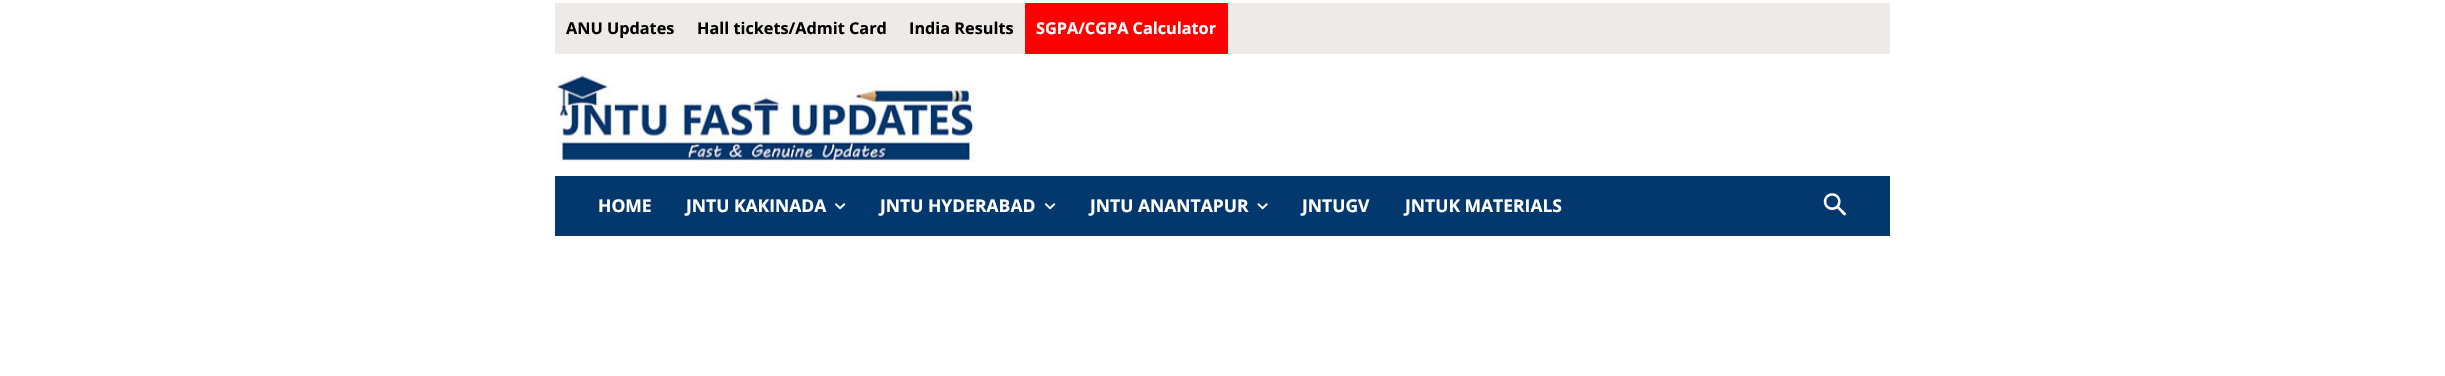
#include "include/core/SkBlurTypes.h"
#include "include/core/SkCanvas.h"
#include "include/core/SkData.h"
#include "include/core/SkFont.h"
#include "include/core/SkFontMgr.h"
#include "include/core/SkImage.h"
#include "include/core/SkMaskFilter.h"
#include "include/core/SkPaint.h"
#include "include/core/SkPathBuilder.h"
#include "include/core/SkTextBlob.h"
#include "include/effects/SkDashPathEffect.h"
#include "include/effects/SkGradientShader.h"
#include "include/utils/SkParsePath.h"

extern sk_sp<SkFontMgr> fontMgr;

void draw(SkCanvas* canvas) {
  SkPaint p;
  p.setAntiAlias(true);
  canvas->clear(SK_ColorWHITE);
  p.setColor(SkColorSetRGB(237, 234, 232));
  canvas->drawRect(SkRect::MakeLTRB(555, 3, 1890, 54), p);
  p.setColor(SkColorSetRGB(255, 0, 0));
  canvas->drawRoundRect(SkRect::MakeLTRB(1025, 3, 1228, 54), 1, 1, p);
  canvas->drawImageRect(SkImages::DeferredFromEncodedData(SkData::MakeFromFileName("images/1.png")), SkRect::MakeLTRB(555, 70, 977, 162), SkSamplingOptions());
  p.setColor(SkColorSetRGB(3, 56, 110));
  canvas->drawRect(SkRect::MakeLTRB(555, 176, 1890, 236), p);
  canvas->drawImageRect(SkImages::DeferredFromEncodedData(SkData::MakeFromFileName("images/2.png")), SkRect::MakeLTRB(835, 203, 846, 210), SkSamplingOptions());
  canvas->drawImageRect(SkImages::DeferredFromEncodedData(SkData::MakeFromFileName("images/2.png")), SkRect::MakeLTRB(1045, 203, 1056, 210), SkSamplingOptions());
  canvas->drawImageRect(SkImages::DeferredFromEncodedData(SkData::MakeFromFileName("images/3.png")), SkRect::MakeLTRB(1257, 203, 1268, 210), SkSamplingOptions());
  canvas->drawImageRect(SkImages::DeferredFromEncodedData(SkData::MakeFromFileName("images/4.png")), SkRect::MakeLTRB(1823, 193, 1846, 216), SkSamplingOptions());
  SkFont font1(fontMgr->matchFamilyStyle("Open Sans", SkFontStyle::Bold()), 16.25f);
  font1.setSubpixel(true);
  p.setColor(SK_ColorBLACK);
  canvas->drawString("ANU Updates", 566, 34, font1, p);
  canvas->drawString("Hall tickets/Admit Card", 697, 34, font1, p);
  canvas->drawString("India Results", 909, 34, font1, p);
  p.setColor(SK_ColorWHITE);
  canvas->drawString("SGPA/CGPA Calculator", 1036, 34, font1, p);
  SkFont font2(fontMgr->matchFamilyStyle("Open Sans", SkFontStyle::Bold()), 17.5f);
  font2.setSubpixel(true);
  canvas->drawString("HOME", 598, 212, font2, p);
  canvas->drawString("JNTU KAKINADA", 686, 212, font2, p);
  canvas->drawString("JNTU HYDERABAD", 880, 212, font2, p);
  canvas->drawString("JNTU ANANTAPUR", 1090, 212, font2, p);
  canvas->drawString("JNTUGV", 1302, 212, font2, p);
  canvas->drawString("JNTUK MATERIALS", 1405, 212, font2, p);
}
